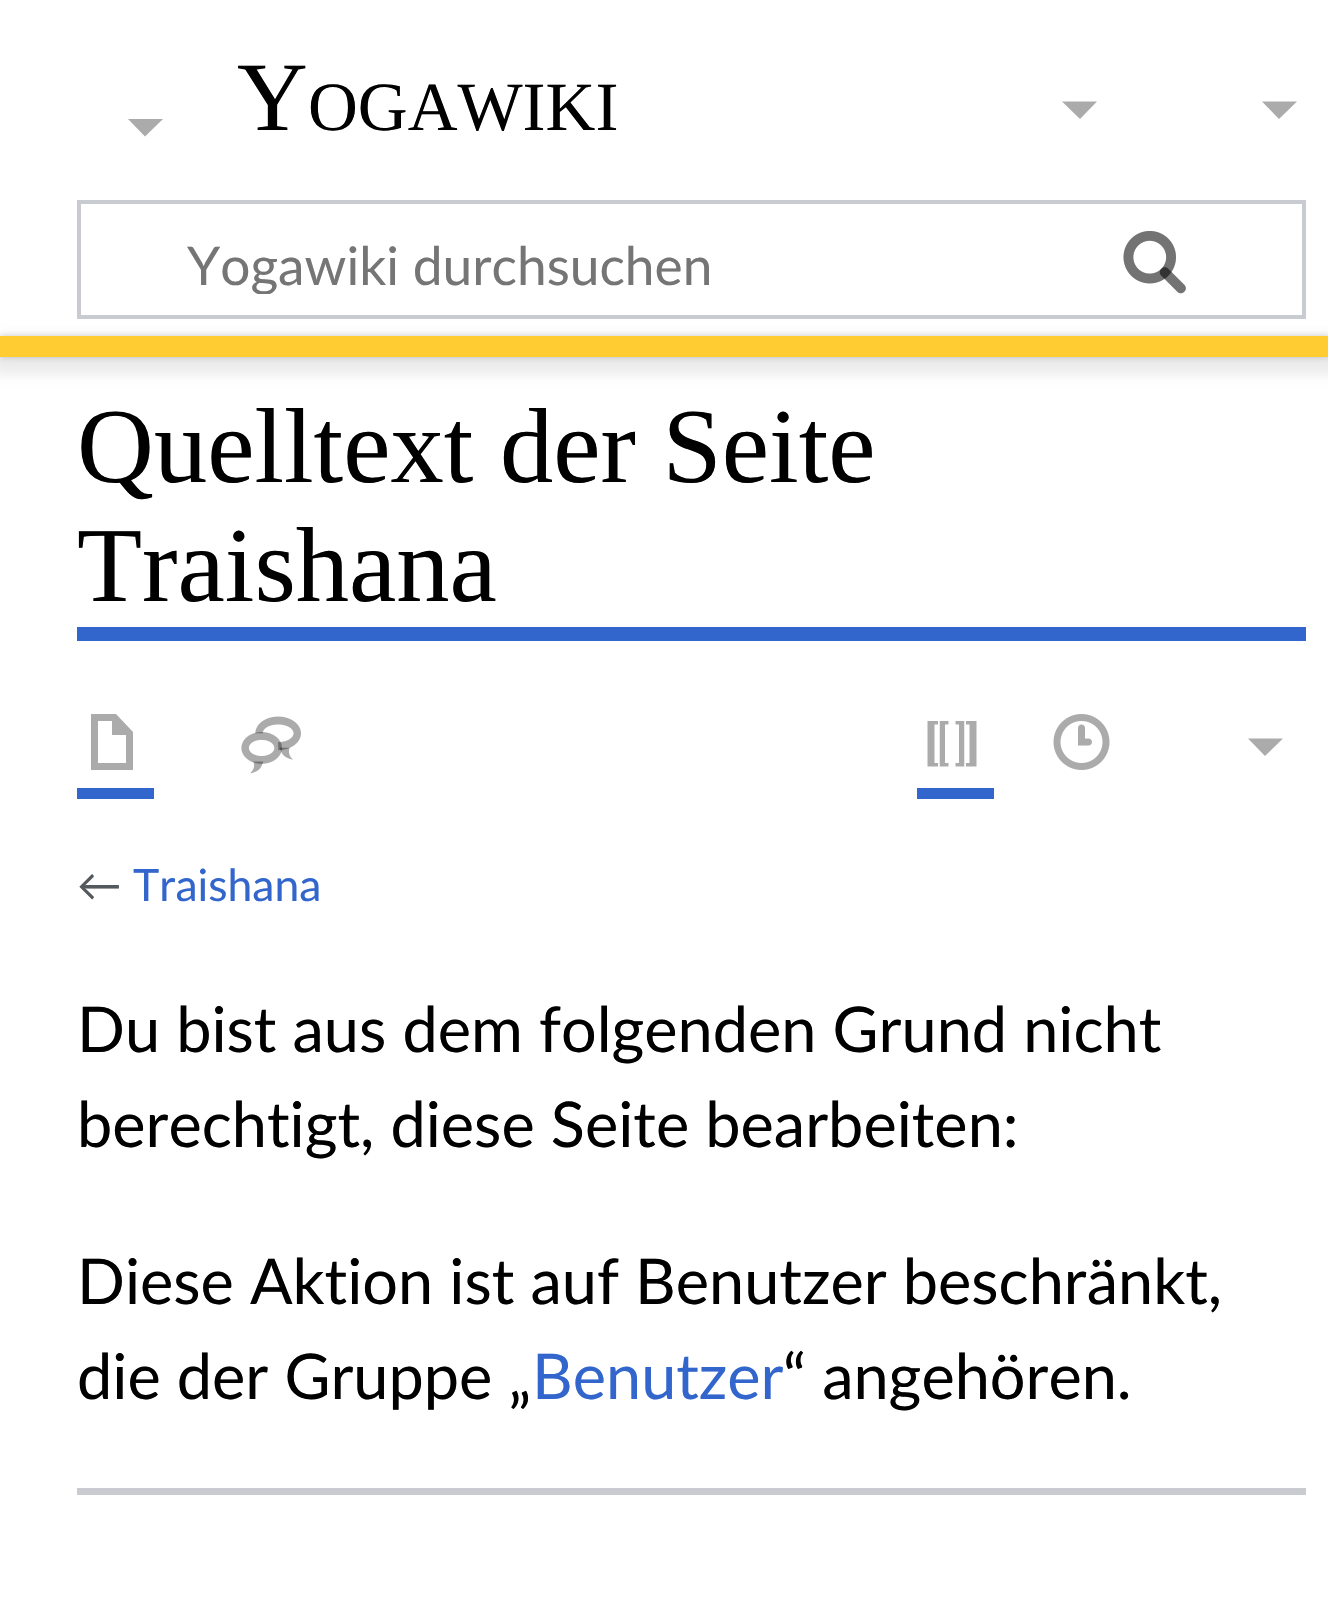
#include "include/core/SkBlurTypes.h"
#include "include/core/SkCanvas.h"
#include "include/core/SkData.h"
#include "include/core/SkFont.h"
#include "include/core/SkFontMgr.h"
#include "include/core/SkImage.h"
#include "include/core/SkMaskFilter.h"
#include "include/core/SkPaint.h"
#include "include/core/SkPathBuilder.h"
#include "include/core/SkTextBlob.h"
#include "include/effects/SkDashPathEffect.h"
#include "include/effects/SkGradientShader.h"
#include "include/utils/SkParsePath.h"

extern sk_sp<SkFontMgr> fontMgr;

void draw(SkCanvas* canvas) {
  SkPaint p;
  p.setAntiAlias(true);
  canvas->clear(SK_ColorWHITE);
  p.setColor(SkColorSetRGB(171, 171, 171));
  canvas->drawPath(SkPathBuilder().moveTo(1297, 101.5f).lineTo(1279, 119).lineTo(1262, 101.5f).close().detach(), p);
  p.setStyle(SkPaint::kStroke_Style);
  p.setStrokeWidth(4);
  p.setColor(SkColorSetRGB(200, 204, 209));
  canvas->drawRect(SkRect::MakeLTRB(79, 202, 1304, 317), p);
  canvas->drawImageRect(SkImages::DeferredFromEncodedData(SkData::MakeFromFileName("images/1.png")), SkRect::MakeLTRB(1123, 231, 1186, 294), SkSamplingOptions());
  canvas->drawImageRect(SkImages::DeferredFromEncodedData(SkData::MakeFromFileName("images/2.png")), SkRect::MakeLTRB(1123, 231, 1186, 294), SkSamplingOptions());
  p.setStyle(SkPaint::kFill_Style);
  p.setColor(SkColorSetARGB(51, 0, 0, 0));
  p.setMaskFilter(SkMaskFilter::MakeBlur(kNormal_SkBlurStyle, 3.5f));
  canvas->drawRect(SkRect::MakeLTRB(0, 336, 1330, 357), p);
  p.setMaskFilter(nullptr);
  p.setColor(SkColorSetARGB(18, 0, 0, 0));
  p.setMaskFilter(SkMaskFilter::MakeBlur(kNormal_SkBlurStyle, 5));
  canvas->drawRect(SkRect::MakeLTRB(-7, 340, 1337, 375), p);
  p.setMaskFilter(nullptr);
  p.setColor(SkColorSetRGB(255, 204, 50));
  canvas->drawRect(SkRect::MakeLTRB(0, 336, 1328, 357), p);
  p.setColor(SkColorSetRGB(171, 171, 171));
  canvas->drawPath(SkPathBuilder().moveTo(1097, 101.5f).lineTo(1080, 119).lineTo(1062, 101.5f).close().detach(), p);
  canvas->drawPath(SkPathBuilder().moveTo(163, 119).lineTo(145, 136.5f).lineTo(128, 119).close().detach(), p);
  p.setColor(SkColorSetRGB(51, 102, 204));
  canvas->drawRect(SkRect::MakeLTRB(77, 627, 1306, 641), p);
  canvas->drawRect(SkRect::MakeLTRB(77, 788, 154, 799), p);
  p.setColor(SkColorSetRGB(171, 171, 171));
  canvas->drawPath(SkPathBuilder().moveTo(91, 714).lineTo(91, 770).lineTo(133, 770).lineTo(133, 732).lineTo(116, 714).close().moveTo(98, 721).lineTo(112, 721).lineTo(112, 735).lineTo(126, 735).lineTo(126, 763).lineTo(98, 763).close().detach(), p);
  canvas->drawImageRect(SkImages::DeferredFromEncodedData(SkData::MakeFromFileName("images/3.png")), SkRect::MakeLTRB(241, 716, 301, 774), SkSamplingOptions());
  p.setColor(SkColorSetRGB(51, 102, 204));
  canvas->drawRect(SkRect::MakeLTRB(917, 788, 994, 799), p);
  canvas->drawImageRect(SkImages::DeferredFromEncodedData(SkData::MakeFromFileName("images/4.png")), SkRect::MakeLTRB(927, 721, 977, 767), SkSamplingOptions());
  canvas->drawImageRect(SkImages::DeferredFromEncodedData(SkData::MakeFromFileName("images/5.png")), SkRect::MakeLTRB(1053, 714, 1110, 770), SkSamplingOptions());
  p.setColor(SkColorSetRGB(171, 171, 171));
  canvas->drawPath(SkPathBuilder().moveTo(1283, 738.5f).lineTo(1265, 756).lineTo(1248, 738.5f).close().detach(), p);
  p.setColor(SkColorSetRGB(200, 204, 209));
  canvas->drawRect(SkRect::MakeLTRB(77, 1488, 1306, 1495), p);
  SkFont font1(fontMgr->matchFamilyStyle("Liberation Serif", SkFontStyle::Normal()), 98);
  font1.setSubpixel(true);
  p.setColor(SK_ColorBLACK);
  canvas->drawString("Y", 237, 130, font1, p);
  SkFont font2(fontMgr->matchFamilyStyle("Liberation Serif", SkFontStyle::Normal()), 69);
  font2.setSubpixel(true);
  canvas->drawString("OGAWIKI", 308, 130, font2, p);
  canvas->save();
  canvas->clipRect(SkRect::MakeLTRB(186, 231, 1050, 294));
  SkFont font3(fontMgr->matchFamilyStyle("Lato", SkFontStyle::Normal()), 53.25f);
  font3.setSubpixel(true);
  p.setColor(SkColorSetRGB(117, 117, 117));
  canvas->drawString("Yogawiki durchsuchen", 187, 285, font3, p);
  canvas->restore();
  SkFont font4(fontMgr->matchFamilyStyle("Liberation Serif", SkFontStyle::Normal()), 106.5f);
  font4.setSubpixel(true);
  p.setColor(SK_ColorBLACK);
  canvas->drawString("Quelltext der Seite", 77, 482, font4, p);
  canvas->drawString("Traishana", 77, 601, font4, p);
  SkFont font5(fontMgr->matchFamilyStyle("Lato", SkFontStyle::Normal()), 44.5f);
  font5.setSubpixel(true);
  p.setColor(SkColorSetRGB(84, 89, 93));
  canvas->drawString("←", 77, 901, font5, p);
  p.setColor(SkColorSetRGB(51, 102, 204));
  canvas->drawString("Traishana", 133, 901, font5, p);
  SkFont font6(fontMgr->matchFamilyStyle("Lato", SkFontStyle::Normal()), 63);
  font6.setSubpixel(true);
  p.setColor(SK_ColorBLACK);
  canvas->drawString("Du bist aus dem folgenden Grund nicht", 77, 1052, font6, p);
  canvas->drawString("berechtigt, diese Seite bearbeiten:", 77, 1147, font6, p);
  canvas->drawString("Diese Aktion ist auf Benutzer beschränkt,", 77, 1304, font6, p);
  canvas->drawString("die der Gruppe „", 77, 1399, font6, p);
  p.setColor(SkColorSetRGB(51, 102, 204));
  canvas->drawString("Benutzer", 532, 1399, font6, p);
  p.setColor(SK_ColorBLACK);
  canvas->drawString("“ angehören.", 783, 1399, font6, p);
}
